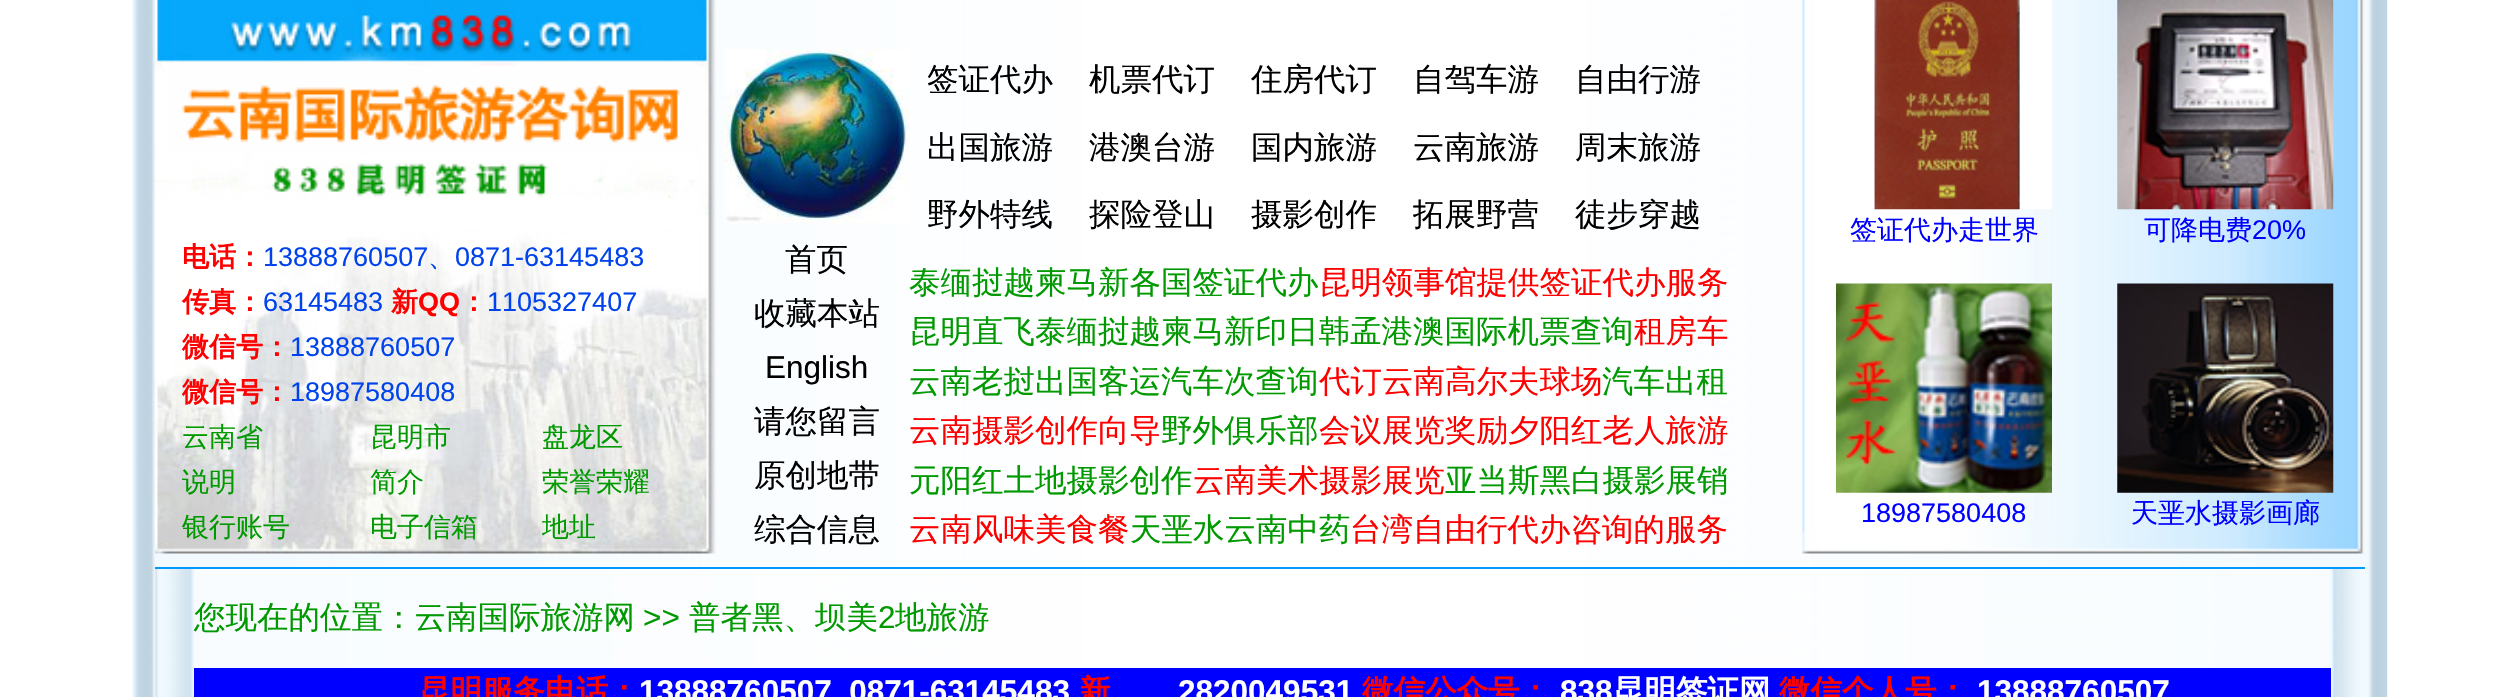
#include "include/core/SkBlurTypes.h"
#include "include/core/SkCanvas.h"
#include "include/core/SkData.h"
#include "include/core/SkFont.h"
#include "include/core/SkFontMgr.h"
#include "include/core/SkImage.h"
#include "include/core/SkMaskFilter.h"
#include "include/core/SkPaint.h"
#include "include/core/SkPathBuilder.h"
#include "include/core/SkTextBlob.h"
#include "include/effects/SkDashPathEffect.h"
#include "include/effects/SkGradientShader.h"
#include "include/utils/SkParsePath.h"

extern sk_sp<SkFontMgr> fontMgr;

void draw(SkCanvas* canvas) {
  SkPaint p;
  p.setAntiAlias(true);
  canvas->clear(SK_ColorWHITE);
  canvas->drawImageRect(SkImages::DeferredFromEncodedData(SkData::MakeFromFileName("images/1.png")), SkRect::MakeLTRB(132, 0, 2388, 697), SkSamplingOptions());
  canvas->drawImageRect(SkImages::DeferredFromEncodedData(SkData::MakeFromFileName("images/2.png")), SkRect::MakeLTRB(155, 0, 716, 554), SkSamplingOptions());
  canvas->drawImageRect(SkImages::DeferredFromEncodedData(SkData::MakeFromFileName("images/3.png")), SkRect::MakeLTRB(724, 49, 909, 223), SkSamplingOptions());
  canvas->drawImageRect(SkImages::DeferredFromEncodedData(SkData::MakeFromFileName("images/4.png")), SkRect::MakeLTRB(1802, 0, 2365, 554), SkSamplingOptions());
  canvas->drawImageRect(SkImages::DeferredFromEncodedData(SkData::MakeFromFileName("images/5.png")), SkRect::MakeLTRB(1874, 0, 2052, 210), SkSamplingOptions());
  canvas->drawImageRect(SkImages::DeferredFromEncodedData(SkData::MakeFromFileName("images/6.png")), SkRect::MakeLTRB(2117, 0, 2334, 210), SkSamplingOptions());
  canvas->drawImageRect(SkImages::DeferredFromEncodedData(SkData::MakeFromFileName("images/7.png")), SkRect::MakeLTRB(1836, 283, 2052, 493), SkSamplingOptions());
  canvas->drawImageRect(SkImages::DeferredFromEncodedData(SkData::MakeFromFileName("images/8.png")), SkRect::MakeLTRB(2117, 283, 2334, 493), SkSamplingOptions());
  canvas->drawImageRect(SkImages::DeferredFromEncodedData(SkData::MakeFromFileName("images/9.png")), SkRect::MakeLTRB(155, 569, 2360, 697), SkSamplingOptions());
  p.setColor(SkColorSetRGB(0, 153, 255));
  canvas->drawRect(SkRect::MakeLTRB(155, 567, 2365, 569), p);
  p.setColor(SkColorSetRGB(0, 0, 255));
  canvas->drawRect(SkRect::MakeLTRB(194, 668, 2331, 697), p);
  SkFont font1(fontMgr->matchFamilyStyle("WenQuanYi Zen Hei", SkFontStyle::Bold()), 27);
  font1.setSubpixel(true);
  p.setColor(SkColorSetRGB(255, 0, 0));
  canvas->drawString("电话：", 182, 266, font1, p);
  SkFont font2(fontMgr->matchFamilyStyle("Liberation Sans", SkFontStyle::Normal()), 27);
  font2.setSubpixel(true);
  p.setColor(SkColorSetRGB(0, 67, 237));
  canvas->drawString("13888760507", 263, 266, font2, p);
  SkFont font3(fontMgr->matchFamilyStyle("WenQuanYi Zen Hei", SkFontStyle(500, SkFontStyle::kNormal_Width, SkFontStyle::kUpright_Slant)), 27);
  font3.setSubpixel(true);
  canvas->drawString("、", 428, 266, font3, p);
  canvas->drawString("0871-63145483", 455, 266, font2, p);
  p.setColor(SkColorSetRGB(255, 0, 0));
  canvas->drawString("传真：", 182, 311, font1, p);
  p.setColor(SkColorSetRGB(0, 67, 237));
  canvas->drawString("63145483", 263, 311, font2, p);
  p.setColor(SkColorSetRGB(255, 0, 0));
  canvas->drawString("新", 391, 311, font1, p);
  SkFont font4(fontMgr->matchFamilyStyle("Liberation Sans", SkFontStyle::Bold()), 27);
  font4.setSubpixel(true);
  canvas->drawString("QQ", 418, 311, font4, p);
  canvas->drawString("：", 460, 311, font1, p);
  p.setColor(SkColorSetRGB(0, 67, 237));
  canvas->drawString("1105327407", 487, 311, font2, p);
  p.setColor(SkColorSetRGB(255, 0, 0));
  canvas->drawString("微信号：", 182, 356, font1, p);
  p.setColor(SkColorSetRGB(0, 67, 237));
  canvas->drawString("13888760507", 290, 356, font2, p);
  p.setColor(SkColorSetRGB(255, 0, 0));
  canvas->drawString("微信号：", 182, 401, font1, p);
  p.setColor(SkColorSetRGB(0, 67, 237));
  canvas->drawString("18987580408", 290, 401, font2, p);
  p.setColor(SkColorSetRGB(0, 153, 0));
  canvas->drawString("云南省", 182, 446, font3, p);
  canvas->drawString("昆明市", 370, 446, font3, p);
  canvas->drawString("盘龙区", 542, 446, font3, p);
  canvas->drawString("说明", 182, 491, font3, p);
  canvas->drawString("简介", 370, 491, font3, p);
  canvas->drawString("荣誉荣耀", 542, 491, font3, p);
  canvas->drawString("银行账号", 182, 536, font3, p);
  canvas->drawString("电子信箱", 370, 536, font3, p);
  canvas->drawString("地址", 542, 536, font3, p);
  SkFont font5(fontMgr->matchFamilyStyle("WenQuanYi Zen Hei", SkFontStyle(500, SkFontStyle::kNormal_Width, SkFontStyle::kUpright_Slant)), 31.5f);
  font5.setSubpixel(true);
  p.setColor(SK_ColorBLACK);
  canvas->drawString("首页", 785, 270, font5, p);
  canvas->drawString("收藏本站", 754, 324, font5, p);
  SkFont font6(fontMgr->matchFamilyStyle("Liberation Sans", SkFontStyle::Normal()), 31.5f);
  font6.setSubpixel(true);
  canvas->drawString("English", 765, 378, font6, p);
  canvas->drawString("请您留言", 754, 432, font5, p);
  canvas->drawString("原创地带", 754, 486, font5, p);
  canvas->drawString("综合信息", 754, 540, font5, p);
  canvas->drawString("签证代办", 927, 90, font5, p);
  canvas->drawString("机票代订", 1089, 90, font5, p);
  canvas->drawString("住房代订", 1251, 90, font5, p);
  canvas->drawString("自驾车游", 1413, 90, font5, p);
  canvas->drawString("自由行游", 1575, 90, font5, p);
  canvas->drawString("出国旅游", 927, 158, font5, p);
  canvas->drawString("港澳台游", 1089, 158, font5, p);
  canvas->drawString("国内旅游", 1251, 158, font5, p);
  canvas->drawString("云南旅游", 1413, 158, font5, p);
  canvas->drawString("周末旅游", 1575, 158, font5, p);
  canvas->drawString("野外特线", 927, 225, font5, p);
  canvas->drawString("探险登山", 1089, 225, font5, p);
  canvas->drawString("摄影创作", 1251, 225, font5, p);
  canvas->drawString("拓展野营", 1413, 225, font5, p);
  canvas->drawString("徒步穿越", 1575, 225, font5, p);
  p.setColor(SkColorSetRGB(0, 153, 0));
  canvas->drawString("泰缅挝越柬马新各国签证代办", 909, 293, font5, p);
  p.setColor(SkColorSetRGB(255, 0, 0));
  canvas->drawString("昆明领事馆提供签证代办服务", 1319, 293, font5, p);
  p.setColor(SkColorSetRGB(0, 153, 0));
  canvas->drawString("昆明直飞泰缅挝越柬马新印日韩孟港澳国际机票查询", 909, 342, font5, p);
  p.setColor(SkColorSetRGB(255, 0, 0));
  canvas->drawString("租房车", 1634, 342, font5, p);
  p.setColor(SkColorSetRGB(0, 153, 0));
  canvas->drawString("云南老挝出国客运汽车次查询", 909, 392, font5, p);
  p.setColor(SkColorSetRGB(255, 0, 0));
  canvas->drawString("代订云南高尔夫球场", 1319, 392, font5, p);
  p.setColor(SkColorSetRGB(0, 153, 0));
  canvas->drawString("汽车出租", 1602, 392, font5, p);
  p.setColor(SkColorSetRGB(255, 0, 0));
  canvas->drawString("云南摄影创作向导", 909, 441, font5, p);
  p.setColor(SkColorSetRGB(0, 153, 0));
  canvas->drawString("野外俱乐部", 1161, 441, font5, p);
  p.setColor(SkColorSetRGB(255, 0, 0));
  canvas->drawString("会议展览奖励夕阳红老人旅游", 1319, 441, font5, p);
  p.setColor(SkColorSetRGB(0, 153, 0));
  canvas->drawString("元阳红土地摄影创作", 909, 491, font5, p);
  p.setColor(SkColorSetRGB(255, 0, 0));
  canvas->drawString("云南美术摄影展览", 1193, 491, font5, p);
  p.setColor(SkColorSetRGB(0, 153, 0));
  canvas->drawString("亚当斯黑白摄影展销", 1445, 491, font5, p);
  p.setColor(SkColorSetRGB(255, 0, 0));
  canvas->drawString("云南风味美食餐", 909, 540, font5, p);
  p.setColor(SkColorSetRGB(0, 153, 0));
  canvas->drawString("天垩水云南中药", 1130, 540, font5, p);
  p.setColor(SkColorSetRGB(255, 0, 0));
  canvas->drawString("台湾自由行代办咨询的服务", 1350, 540, font5, p);
  p.setColor(SkColorSetRGB(0, 0, 255));
  canvas->drawString("签证代办走世界", 1850, 239, font3, p);
  canvas->drawString("可降电费", 2144, 239, font3, p);
  canvas->drawString("20%", 2252, 239, font2, p);
  canvas->drawString("18987580408", 1861, 522, font2, p);
  canvas->drawString("天垩水摄影画廊", 2131, 522, font3, p);
  p.setColor(SkColorSetRGB(0, 153, 0));
  canvas->drawString("您现在的位置：云南国际旅游网", 194, 628, font5, p);
  canvas->drawString(">>", 643, 628, font6, p);
  canvas->drawString("普者黑、坝美", 689, 628, font5, p);
  canvas->drawString("2", 878, 628, font6, p);
  canvas->drawString("地旅游", 895, 628, font5, p);
  SkFont font7(fontMgr->matchFamilyStyle("WenQuanYi Zen Hei", SkFontStyle::Bold()), 31.5f);
  font7.setSubpixel(true);
  p.setColor(SkColorSetRGB(255, 0, 0));
  canvas->drawString("昆明服务电话：", 419, 702, font7, p);
  SkFont font8(fontMgr->matchFamilyStyle("Liberation Sans", SkFontStyle::Bold()), 31.5f);
  font8.setSubpixel(true);
  p.setColor(SK_ColorWHITE);
  canvas->drawString("13888760507, 0871-63145483", 639, 702, font8, p);
  p.setColor(SkColorSetRGB(255, 0, 0));
  canvas->drawString("新", 1079, 702, font7, p);
  p.setColor(SK_ColorWHITE);
  canvas->drawString("2820049531", 1178, 702, font8, p);
  p.setColor(SkColorSetRGB(255, 0, 0));
  canvas->drawString("微信公众号：", 1362, 702, font7, p);
  p.setColor(SK_ColorWHITE);
  canvas->drawString("838", 1560, 702, font8, p);
  canvas->drawString("昆明签证网", 1613, 702, font7, p);
  p.setColor(SkColorSetRGB(255, 0, 0));
  canvas->drawString("微信个人号：", 1779, 702, font7, p);
  p.setColor(SK_ColorWHITE);
  canvas->drawString("13888760507", 1977, 702, font8, p);
}
